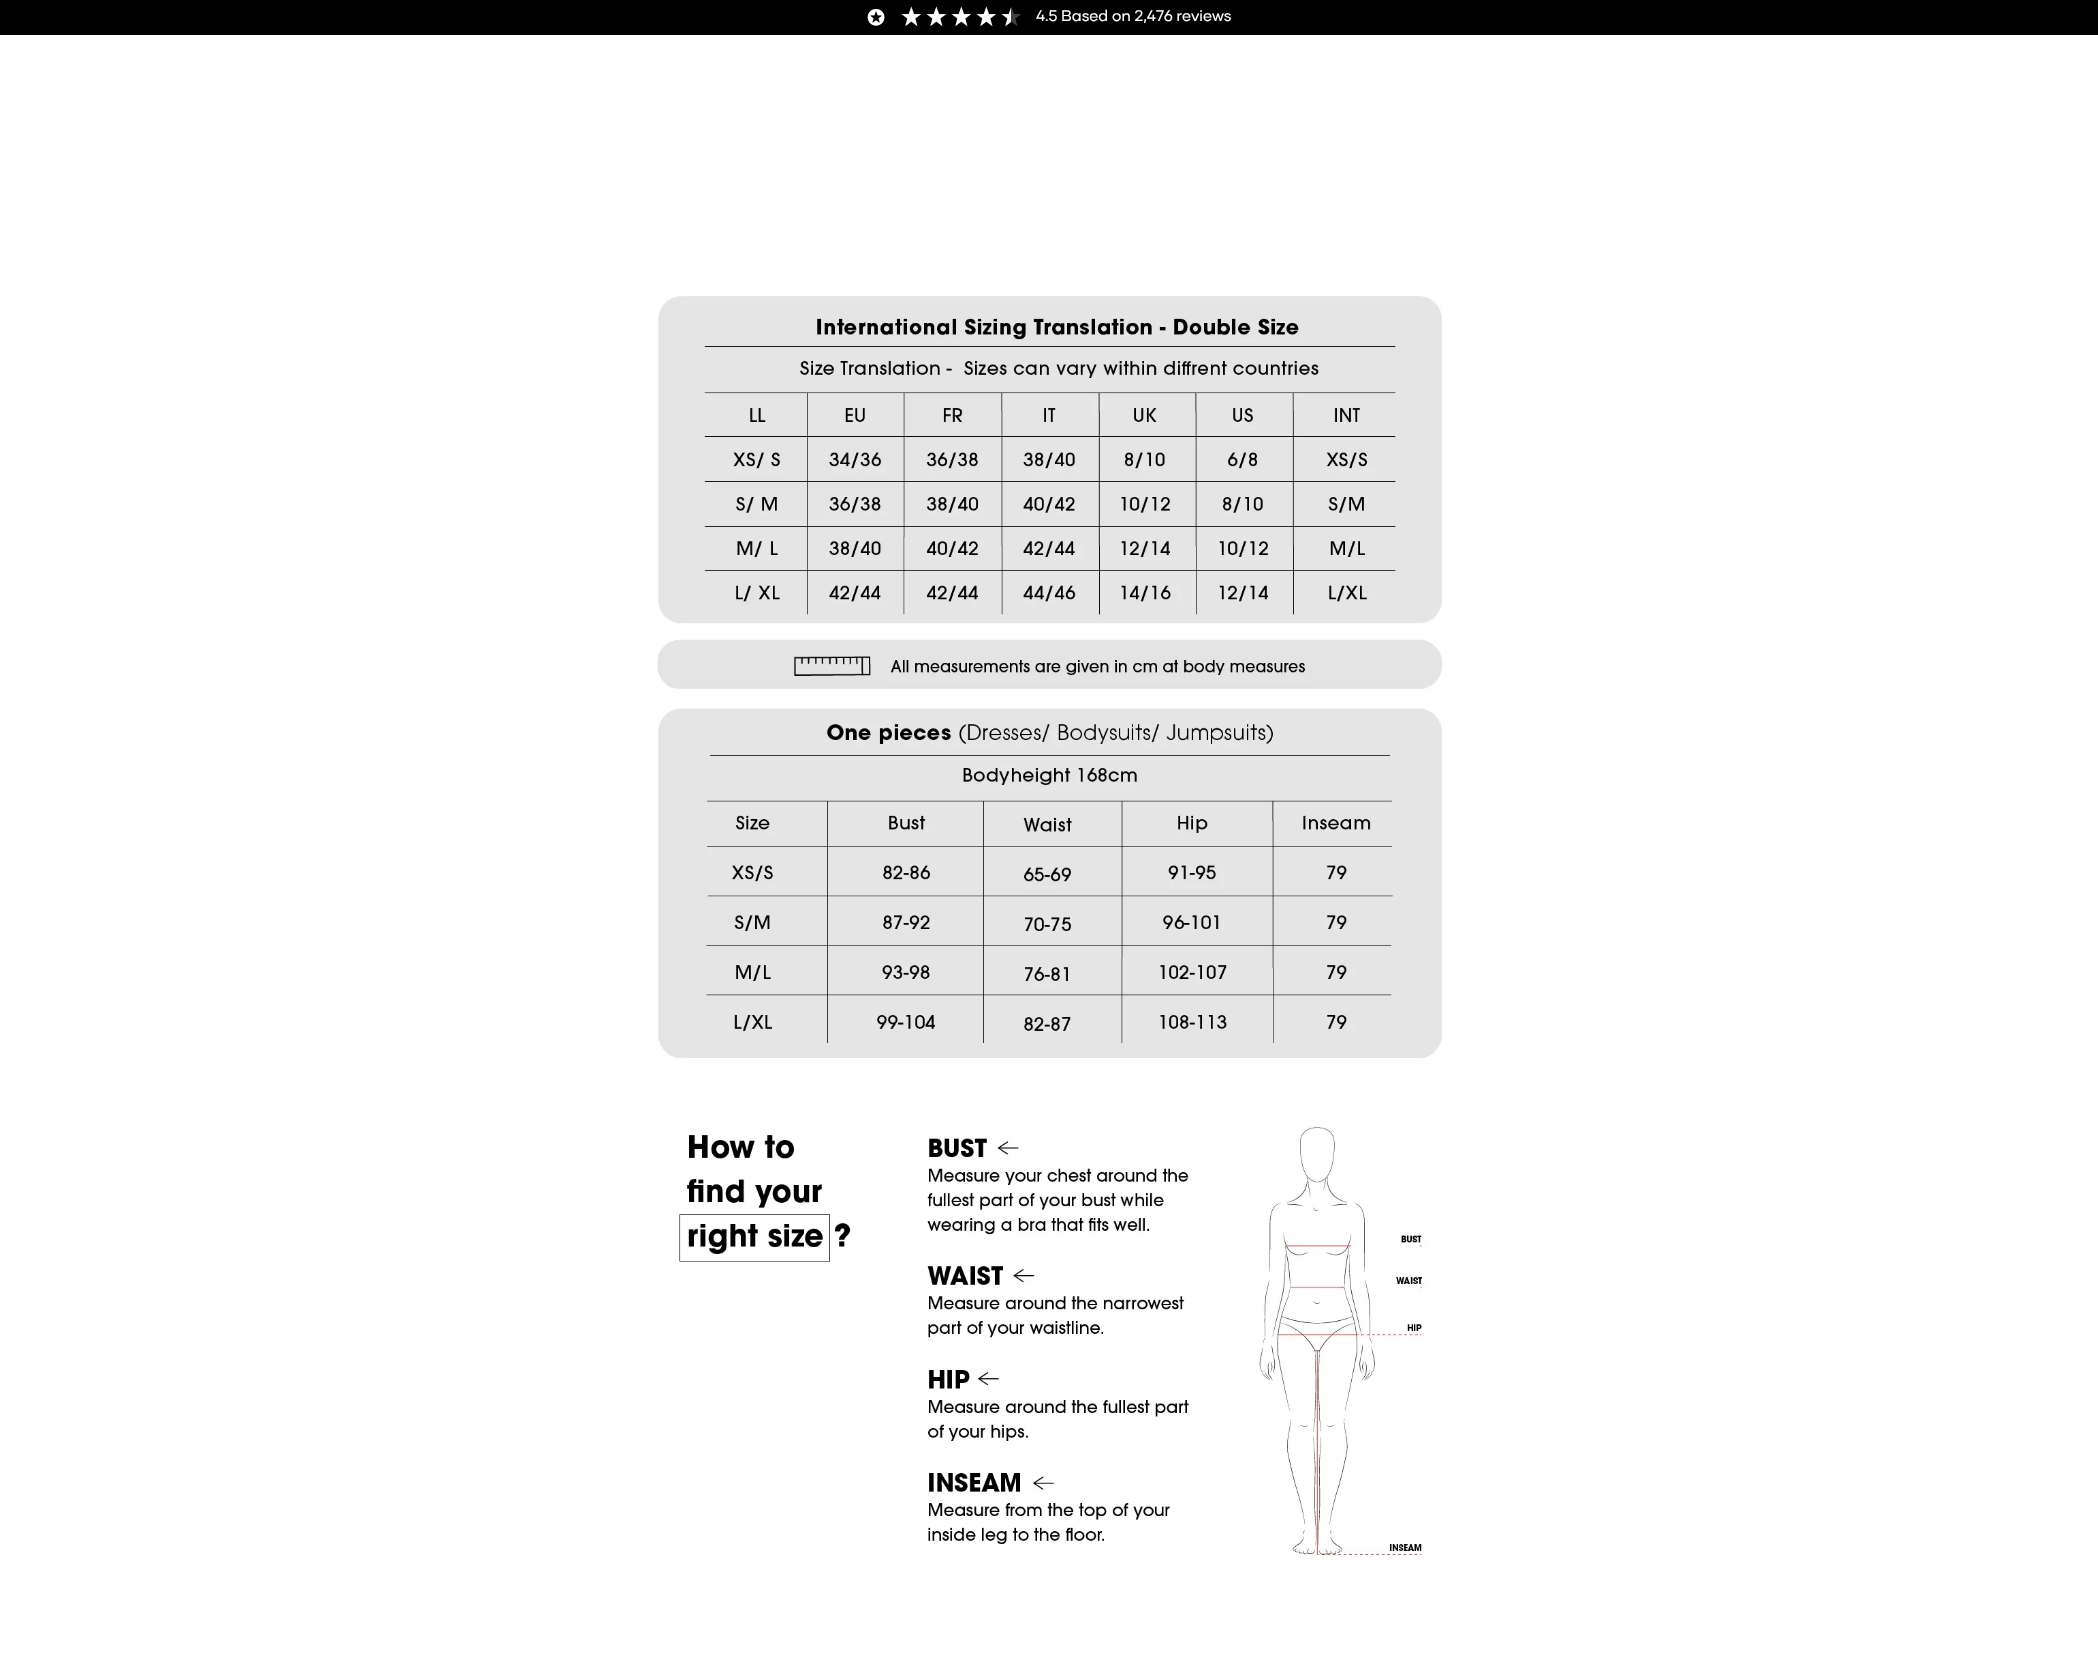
#include "include/core/SkBlurTypes.h"
#include "include/core/SkCanvas.h"
#include "include/core/SkData.h"
#include "include/core/SkFont.h"
#include "include/core/SkFontMgr.h"
#include "include/core/SkImage.h"
#include "include/core/SkMaskFilter.h"
#include "include/core/SkPaint.h"
#include "include/core/SkPathBuilder.h"
#include "include/core/SkTextBlob.h"
#include "include/effects/SkDashPathEffect.h"
#include "include/effects/SkGradientShader.h"
#include "include/utils/SkParsePath.h"

extern sk_sp<SkFontMgr> fontMgr;

void draw(SkCanvas* canvas) {
  SkPaint p;
  p.setAntiAlias(true);
  canvas->clear(SK_ColorWHITE);
  p.setColor(SK_ColorBLACK);
  canvas->drawRect(SkRect::MakeLTRB(0, 0, 2098, 35), p);
  canvas->drawImageRect(SkImages::DeferredFromEncodedData(SkData::MakeFromFileName("images/1.png")), SkRect::MakeLTRB(867, 8, 885, 26), SkSamplingOptions());
  canvas->drawImageRect(SkImages::DeferredFromEncodedData(SkData::MakeFromFileName("images/2.png")), SkRect::MakeLTRB(901, 6, 922, 27), SkSamplingOptions());
  canvas->drawImageRect(SkImages::DeferredFromEncodedData(SkData::MakeFromFileName("images/2.png")), SkRect::MakeLTRB(926, 6, 947, 27), SkSamplingOptions());
  canvas->drawImageRect(SkImages::DeferredFromEncodedData(SkData::MakeFromFileName("images/2.png")), SkRect::MakeLTRB(951, 6, 972, 27), SkSamplingOptions());
  canvas->drawImageRect(SkImages::DeferredFromEncodedData(SkData::MakeFromFileName("images/2.png")), SkRect::MakeLTRB(976, 6, 997, 27), SkSamplingOptions());
  canvas->drawImageRect(SkImages::DeferredFromEncodedData(SkData::MakeFromFileName("images/3.png")), SkRect::MakeLTRB(1001, 6, 1021, 27), SkSamplingOptions());
  canvas->drawImageRect(SkImages::DeferredFromEncodedData(SkData::MakeFromFileName("images/4.png")), SkRect::MakeLTRB(657, 296, 1442, 1556), SkSamplingOptions());
  SkFont font1(fontMgr->matchFamilyStyle("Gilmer", SkFontStyle::Normal()), 15.25f);
  font1.setSubpixel(true);
  p.setColor(SK_ColorWHITE);
  canvas->drawString("4.5 Based on 2,476 reviews", 1036, 21, font1, p);
}
